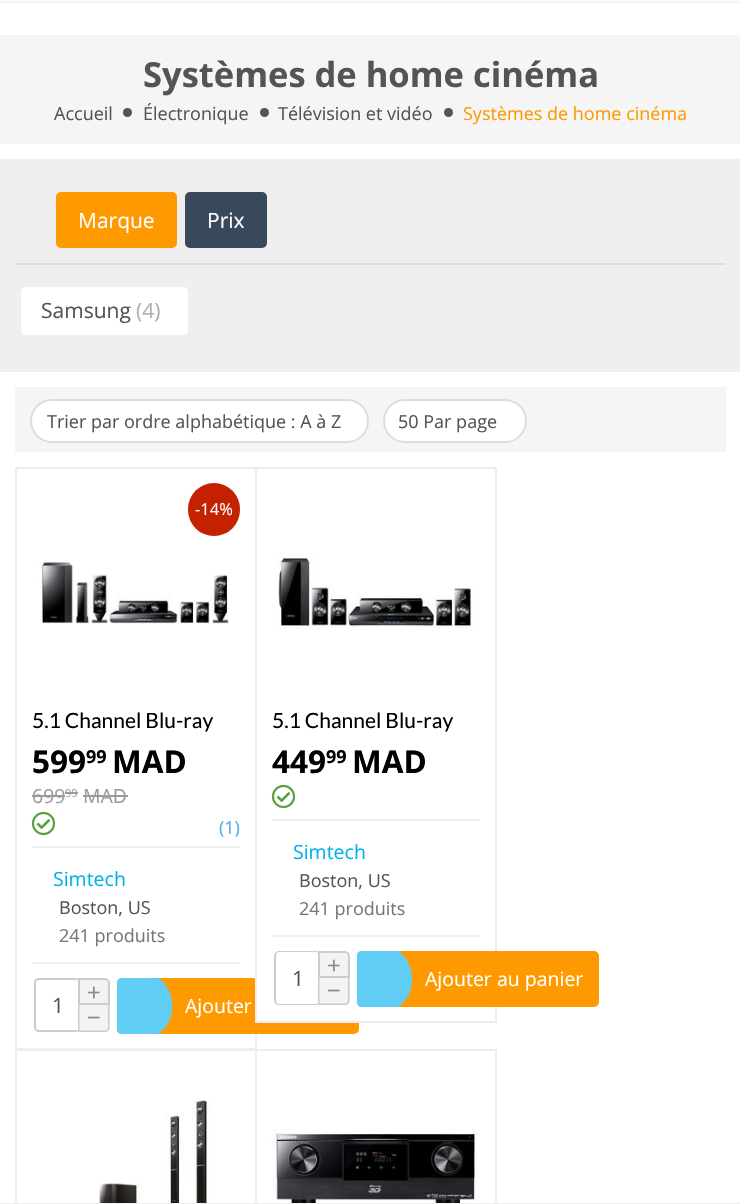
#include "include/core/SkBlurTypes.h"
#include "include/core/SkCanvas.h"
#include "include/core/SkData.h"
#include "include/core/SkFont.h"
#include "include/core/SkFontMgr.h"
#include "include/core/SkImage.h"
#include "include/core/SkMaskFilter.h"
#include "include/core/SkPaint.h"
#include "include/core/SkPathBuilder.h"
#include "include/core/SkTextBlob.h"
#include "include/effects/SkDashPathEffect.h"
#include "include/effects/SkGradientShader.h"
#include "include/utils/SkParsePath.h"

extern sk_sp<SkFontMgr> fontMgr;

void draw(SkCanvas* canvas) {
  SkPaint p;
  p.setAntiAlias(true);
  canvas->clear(SK_ColorWHITE);
  p.setColor(SkColorSetRGB(251, 251, 251));
  canvas->drawRect(SkRect::MakeLTRB(0, 0, 740, 2), p);
  p.setColor(SkColorSetRGB(238, 238, 238));
  canvas->drawRect(SkRect::MakeLTRB(0, 2, 740, 3), p);
  p.setColor(SkColorSetRGB(245, 245, 245));
  canvas->drawRect(SkRect::MakeLTRB(0, 35, 740, 144), p);
  p.setColor(SkColorSetRGB(84, 84, 83));
  canvas->drawCircle(127.5f, 112.5f, 4.5f, p);
  canvas->drawCircle(264.5f, 112.5f, 4.5f, p);
  canvas->drawCircle(448.5f, 112.5f, 4.5f, p);
  p.setColor(SkColorSetRGB(239, 239, 239));
  canvas->drawRect(SkRect::MakeLTRB(0, 159, 740, 372), p);
  p.setColor(SkColorSetRGB(221, 221, 221));
  canvas->drawRect(SkRect::MakeLTRB(15, 263, 726, 265), p);
  p.setColor(SkColorSetRGB(255, 153, 0));
  canvas->drawRoundRect(SkRect::MakeLTRB(56, 192, 177, 248), 5, 5, p);
  p.setColor(SkColorSetRGB(56, 73, 92));
  canvas->drawRoundRect(SkRect::MakeLTRB(185, 192, 267, 248), 5, 5, p);
  p.setColor(SK_ColorWHITE);
  canvas->drawRoundRect(SkRect::MakeLTRB(21, 287, 188, 335), 5, 5, p);
  p.setColor(SkColorSetRGB(245, 245, 245));
  canvas->drawRect(SkRect::MakeLTRB(15, 387, 726, 452), p);
  p.setColor(SK_ColorWHITE);
  canvas->drawRoundRect(SkRect::MakeLTRB(31, 400, 368, 442), 21, 21, p);
  p.setStyle(SkPaint::kStroke_Style);
  p.setStrokeWidth(2);
  p.setColor(SkColorSetRGB(221, 221, 221));
  canvas->drawRoundRect(SkRect::MakeLTRB(31, 400, 368, 442), 21, 21, p);
  p.setStyle(SkPaint::kFill_Style);
  p.setColor(SK_ColorWHITE);
  canvas->drawRoundRect(SkRect::MakeLTRB(384, 400, 526, 442), 21, 21, p);
  p.setStyle(SkPaint::kStroke_Style);
  p.setColor(SkColorSetRGB(221, 221, 221));
  canvas->drawRoundRect(SkRect::MakeLTRB(384, 400, 526, 442), 21, 21, p);
  p.setColor(SkColorSetRGB(238, 238, 238));
  canvas->drawRect(SkRect::MakeLTRB(16, 468, 256, 1049), p);
  p.setStyle(SkPaint::kFill_Style);
  p.setColor(SkColorSetRGB(195, 33, 0));
  canvas->drawRoundRect(SkRect::MakeLTRB(188, 483, 240, 536), 26, 26, p);
  canvas->drawImageRect(SkImages::DeferredFromEncodedData(SkData::MakeFromFileName("images/1.png")), SkRect::MakeLTRB(39, 560, 229, 624), SkSamplingOptions());
  p.setColor(SkColorSetRGB(156, 155, 155));
  canvas->drawRect(SkRect::MakeLTRB(32, 795, 65, 797), p);
  canvas->drawRect(SkRect::MakeLTRB(65, 792, 78, 794), p);
  canvas->drawRect(SkRect::MakeLTRB(83, 795, 128, 797), p);
  p.setColor(SkColorSetRGB(238, 238, 238));
  canvas->drawRect(SkRect::MakeLTRB(32, 846, 240, 848), p);
  canvas->drawImageRect(SkImages::DeferredFromEncodedData(SkData::MakeFromFileName("images/2.png")), SkRect::MakeLTRB(31, 811, 56, 836), SkSamplingOptions());
  canvas->drawRect(SkRect::MakeLTRB(32, 962, 240, 964), p);
  p.setColor(SkColorSetRGB(204, 204, 204));
  canvas->drawPath(SkPathBuilder(SkPathFillType::kEvenOdd).moveTo(39, 978).lineTo(75, 978).cubicTo(77, 978, 80, 980, 80, 982).lineTo(80, 1028).cubicTo(80, 1030, 77, 1032, 75, 1032).lineTo(39, 1032).cubicTo(37, 1032, 34, 1030, 34, 1028).lineTo(34, 982).cubicTo(34, 980, 37, 978, 39, 978).close().moveTo(39, 980).lineTo(75, 980).cubicTo(77, 980, 80, 981, 80, 982).lineTo(80, 1028).cubicTo(80, 1029, 77, 1030, 75, 1030).lineTo(39, 1030).cubicTo(37, 1030, 36, 1029, 36, 1028).lineTo(36, 982).cubicTo(36, 981, 37, 980, 39, 980).close().detach(), p);
  p.setColor(SkColorSetRGB(243, 243, 243));
  canvas->drawPath(SkPathBuilder().moveTo(79, 979).lineTo(105, 979).cubicTo(107, 979, 109, 981, 109, 983).lineTo(109, 1004).lineTo(79, 1004).close().detach(), p);
  p.setStyle(SkPaint::kStroke_Style);
  p.setColor(SkColorSetRGB(204, 204, 204));
  canvas->drawPath(SkPathBuilder().moveTo(79, 979).lineTo(105, 979).cubicTo(107, 979, 109, 981, 109, 983).lineTo(109, 1004).lineTo(79, 1004).close().detach(), p);
  p.setStyle(SkPaint::kFill_Style);
  p.setColor(SkColorSetRGB(243, 243, 243));
  canvas->drawPath(SkPathBuilder().moveTo(78, 1005).lineTo(110, 1005).lineTo(110, 1027).cubicTo(110, 1030, 108, 1032, 105, 1032).lineTo(78, 1032).close().detach(), p);
  p.setColor(SkColorSetRGB(204, 204, 204));
  canvas->drawPath(SkPathBuilder(SkPathFillType::kEvenOdd).moveTo(78, 1005).lineTo(109.5f, 1005).lineTo(109.5f, 1027.5f).cubicTo(109.5f, 1030, 107.5f, 1032, 105, 1032).lineTo(78, 1032).close().moveTo(79.5f, 1005).lineTo(108, 1005).lineTo(108, 1027.5f).cubicTo(108, 1029, 106.5f, 1030.5f, 105, 1030.5f).lineTo(79.5f, 1030.5f).close().detach(), p);
  p.setColor(SkColorSetRGB(255, 153, 0));
  canvas->drawRoundRect(SkRect::MakeLTRB(117, 978, 359, 1034), 5, 5, p);
  p.setColor(SkColorSetRGB(97, 205, 245));
  canvas->drawPath(SkPathBuilder().moveTo(122, 978).cubicTo(119, 978, 117, 980, 117, 983).lineTo(117, 1029).cubicTo(117, 1032, 119, 1034, 122, 1034).lineTo(158, 1034).cubicTo(177, 1022, 177, 990, 158, 978).close().detach(), p);
  p.setColor(SK_ColorWHITE);
  canvas->drawRect(SkRect::MakeLTRB(257, 978, 359, 1021), p);
  p.setStyle(SkPaint::kStroke_Style);
  p.setColor(SkColorSetRGB(238, 238, 238));
  canvas->drawRect(SkRect::MakeLTRB(256, 468, 496, 1022), p);
  canvas->drawImageRect(SkImages::DeferredFromEncodedData(SkData::MakeFromFileName("images/3.png")), SkRect::MakeLTRB(278, 556, 474, 630), SkSamplingOptions());
  p.setStyle(SkPaint::kFill_Style);
  canvas->drawRect(SkRect::MakeLTRB(272, 819, 480, 821), p);
  canvas->drawImageRect(SkImages::DeferredFromEncodedData(SkData::MakeFromFileName("images/2.png")), SkRect::MakeLTRB(271, 784, 296, 809), SkSamplingOptions());
  canvas->drawRect(SkRect::MakeLTRB(272, 935, 480, 937), p);
  p.setColor(SkColorSetRGB(204, 204, 204));
  canvas->drawPath(SkPathBuilder(SkPathFillType::kEvenOdd).moveTo(279, 951).lineTo(315, 951).cubicTo(317, 951, 320, 953, 320, 956).lineTo(320, 1000).cubicTo(320, 1003, 317, 1005, 315, 1005).lineTo(279, 1005).cubicTo(277, 1005, 274, 1003, 274, 1000).lineTo(274, 956).cubicTo(274, 953, 277, 951, 279, 951).close().moveTo(279, 952).lineTo(315, 952).cubicTo(317, 952, 320, 954, 320, 956).lineTo(320, 1000).cubicTo(320, 1002, 317, 1004, 315, 1004).lineTo(279, 1004).cubicTo(277, 1004, 276, 1002, 276, 1000).lineTo(276, 956).cubicTo(276, 954, 277, 952, 279, 952).close().detach(), p);
  p.setColor(SkColorSetRGB(243, 243, 243));
  canvas->drawPath(SkPathBuilder().moveTo(319, 952).lineTo(345, 952).cubicTo(347, 952, 349, 954, 349, 956).lineTo(349, 977).lineTo(319, 977).close().detach(), p);
  p.setStyle(SkPaint::kStroke_Style);
  p.setColor(SkColorSetRGB(204, 204, 204));
  canvas->drawPath(SkPathBuilder().moveTo(319, 952).lineTo(345, 952).cubicTo(347, 952, 349, 954, 349, 956).lineTo(349, 977).lineTo(319, 977).close().detach(), p);
  p.setStyle(SkPaint::kFill_Style);
  p.setColor(SkColorSetRGB(243, 243, 243));
  canvas->drawPath(SkPathBuilder().moveTo(318, 978).lineTo(350, 978).lineTo(350, 1000).cubicTo(350, 1003, 348, 1005, 345, 1005).lineTo(318, 1005).close().detach(), p);
  p.setColor(SkColorSetRGB(204, 204, 204));
  canvas->drawPath(SkPathBuilder(SkPathFillType::kEvenOdd).moveTo(318, 978).lineTo(349.5f, 978).lineTo(349.5f, 1000.5f).cubicTo(349.5f, 1003, 347.5f, 1005, 345, 1005).lineTo(318, 1005).close().moveTo(319.5f, 978).lineTo(348, 978).lineTo(348, 1000.5f).cubicTo(348, 1002, 346.5f, 1003.5f, 345, 1003.5f).lineTo(319.5f, 1003.5f).close().detach(), p);
  p.setColor(SkColorSetRGB(255, 153, 0));
  canvas->drawRoundRect(SkRect::MakeLTRB(357, 951, 599, 1007), 5, 5, p);
  p.setColor(SkColorSetRGB(97, 205, 245));
  canvas->drawPath(SkPathBuilder().moveTo(362, 951).cubicTo(359, 951, 357, 953, 357, 956).lineTo(357, 1002).cubicTo(357, 1005, 359, 1007, 362, 1007).lineTo(398, 1007).cubicTo(417, 995, 416, 964, 399, 951).close().detach(), p);
  p.setStyle(SkPaint::kStroke_Style);
  p.setColor(SkColorSetRGB(238, 238, 238));
  canvas->drawRect(SkRect::MakeLTRB(16, 1050, 256, 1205), p);
  canvas->drawImageRect(SkImages::DeferredFromEncodedData(SkData::MakeFromFileName("images/4.png")), SkRect::MakeLTRB(99, 1100, 213, 1203), SkSamplingOptions());
  canvas->drawRect(SkRect::MakeLTRB(256, 1050, 496, 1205), p);
  canvas->drawImageRect(SkImages::DeferredFromEncodedData(SkData::MakeFromFileName("images/5.png")), SkRect::MakeLTRB(271, 1129, 480, 1203), SkSamplingOptions());
  p.setStyle(SkPaint::kFill_Style);
  p.setColor(SkColorSetRGB(239, 239, 239));
  canvas->drawRect(SkRect::MakeLTRB(0, 1203, 740, 1204), p);
  SkFont font1(fontMgr->matchFamilyStyle("Open Sans", SkFontStyle::Bold()), 34.5f);
  font1.setSubpixel(true);
  p.setColor(SkColorSetRGB(84, 84, 83));
  canvas->drawString("Systèmes de home cinéma", 143, 87, font1, p);
  SkFont font2(fontMgr->matchFamilyStyle("Open Sans", SkFontStyle::Normal()), 18);
  font2.setSubpixel(true);
  canvas->drawString("Accueil", 54, 120, font2, p);
  canvas->drawString("Électronique", 143, 120, font2, p);
  canvas->drawString("Télévision et vidéo", 278, 120, font2, p);
  p.setColor(SkColorSetRGB(255, 153, 0));
  canvas->drawString("Systèmes de home cinéma", 463, 120, font2, p);
  SkFont font3(fontMgr->matchFamilyStyle("Open Sans", SkFontStyle::Normal()), 21);
  font3.setSubpixel(true);
  p.setColor(SK_ColorWHITE);
  canvas->drawString("Marque", 78, 228, font3, p);
  canvas->drawString("Prix", 207, 228, font3, p);
  p.setColor(SkColorSetRGB(84, 84, 83));
  canvas->drawString("Samsung", 41, 318, font3, p);
  p.setColor(SkColorSetRGB(175, 175, 175));
  canvas->drawString("(4)", 136, 318, font3, p);
  p.setColor(SkColorSetRGB(84, 84, 83));
  canvas->drawString("Trier par ordre alphabétique : A à Z", 47, 428, font2, p);
  canvas->drawString("50 Par page", 398, 428, font2, p);
  SkFont font4(fontMgr->matchFamilyStyle("Open Sans", SkFontStyle::Normal()), 16.5f);
  font4.setSubpixel(true);
  p.setColor(SK_ColorWHITE);
  canvas->drawString("-14%", 195, 515, font4, p);
  SkFont font5(fontMgr->matchFamilyStyle("Lato", SkFontStyle::Normal()), 21);
  font5.setSubpixel(true);
  p.setColor(SK_ColorBLACK);
  canvas->drawString("5.1 Channel Blu-ray", 32, 728, font5, p);
  SkFont font6(fontMgr->matchFamilyStyle("Open Sans", SkFontStyle::Bold()), 31.5f);
  font6.setSubpixel(true);
  canvas->drawString("599", 32, 773, font6, p);
  SkFont font7(fontMgr->matchFamilyStyle("Open Sans", SkFontStyle::Bold()), 18);
  font7.setSubpixel(true);
  canvas->drawString("99", 86, 763, font7, p);
  canvas->drawString("MAD", 112, 773, font6, p);
  SkFont font8(fontMgr->matchFamilyStyle("Open Sans", SkFontStyle::Normal()), 19.5f);
  font8.setSubpixel(true);
  p.setColor(SkColorSetRGB(156, 155, 155));
  canvas->drawString("699", 32, 803, font8, p);
  SkFont font9(fontMgr->matchFamilyStyle("Open Sans", SkFontStyle::Normal()), 11);
  font9.setSubpixel(true);
  canvas->drawString("99", 65, 797, font9, p);
  canvas->drawString("MAD", 83, 803, font8, p);
  p.setColor(SkColorSetRGB(78, 175, 229));
  canvas->drawString("(1)", 219, 834, font2, p);
  p.setColor(SkColorSetRGB(2, 177, 234));
  canvas->drawString("Simtech", 53, 886, font8, p);
  p.setColor(SkColorSetRGB(84, 84, 83));
  canvas->drawString("Boston, US", 59, 914, font2, p);
  p.setColor(SkColorSetRGB(119, 119, 119));
  canvas->drawString("241 produits", 59, 942, font2, p);
  SkFont font10(fontMgr->matchFamilyStyle("Open Sans", SkFontStyle::Normal()), 24);
  font10.setSubpixel(true);
  p.setColor(SkColorSetRGB(136, 136, 136));
  canvas->drawString("+", 87, 1001, font10, p);
  p.setColor(SkColorSetRGB(84, 84, 83));
  canvas->drawString("1", 52, 1013, font3, p);
  p.setColor(SkColorSetRGB(136, 136, 136));
  canvas->drawString("−", 87, 1026, font10, p);
  p.setColor(SK_ColorWHITE);
  canvas->drawString("Ajouter", 185, 1013, font8, p);
  p.setColor(SK_ColorBLACK);
  canvas->drawString("5.1 Channel Blu-ray", 272, 728, font5, p);
  canvas->drawString("449", 272, 773, font6, p);
  canvas->drawString("99", 326, 763, font7, p);
  canvas->drawString("MAD", 352, 773, font6, p);
  p.setColor(SkColorSetRGB(2, 177, 234));
  canvas->drawString("Simtech", 293, 859, font8, p);
  p.setColor(SkColorSetRGB(84, 84, 83));
  canvas->drawString("Boston, US", 299, 887, font2, p);
  p.setColor(SkColorSetRGB(119, 119, 119));
  canvas->drawString("241 produits", 299, 915, font2, p);
  p.setColor(SkColorSetRGB(136, 136, 136));
  canvas->drawString("+", 327, 974, font10, p);
  p.setColor(SkColorSetRGB(84, 84, 83));
  canvas->drawString("1", 292, 986, font3, p);
  p.setColor(SkColorSetRGB(136, 136, 136));
  canvas->drawString("−", 327, 999, font10, p);
  p.setColor(SK_ColorWHITE);
  canvas->drawString("Ajouter au panier", 425, 986, font8, p);
}
